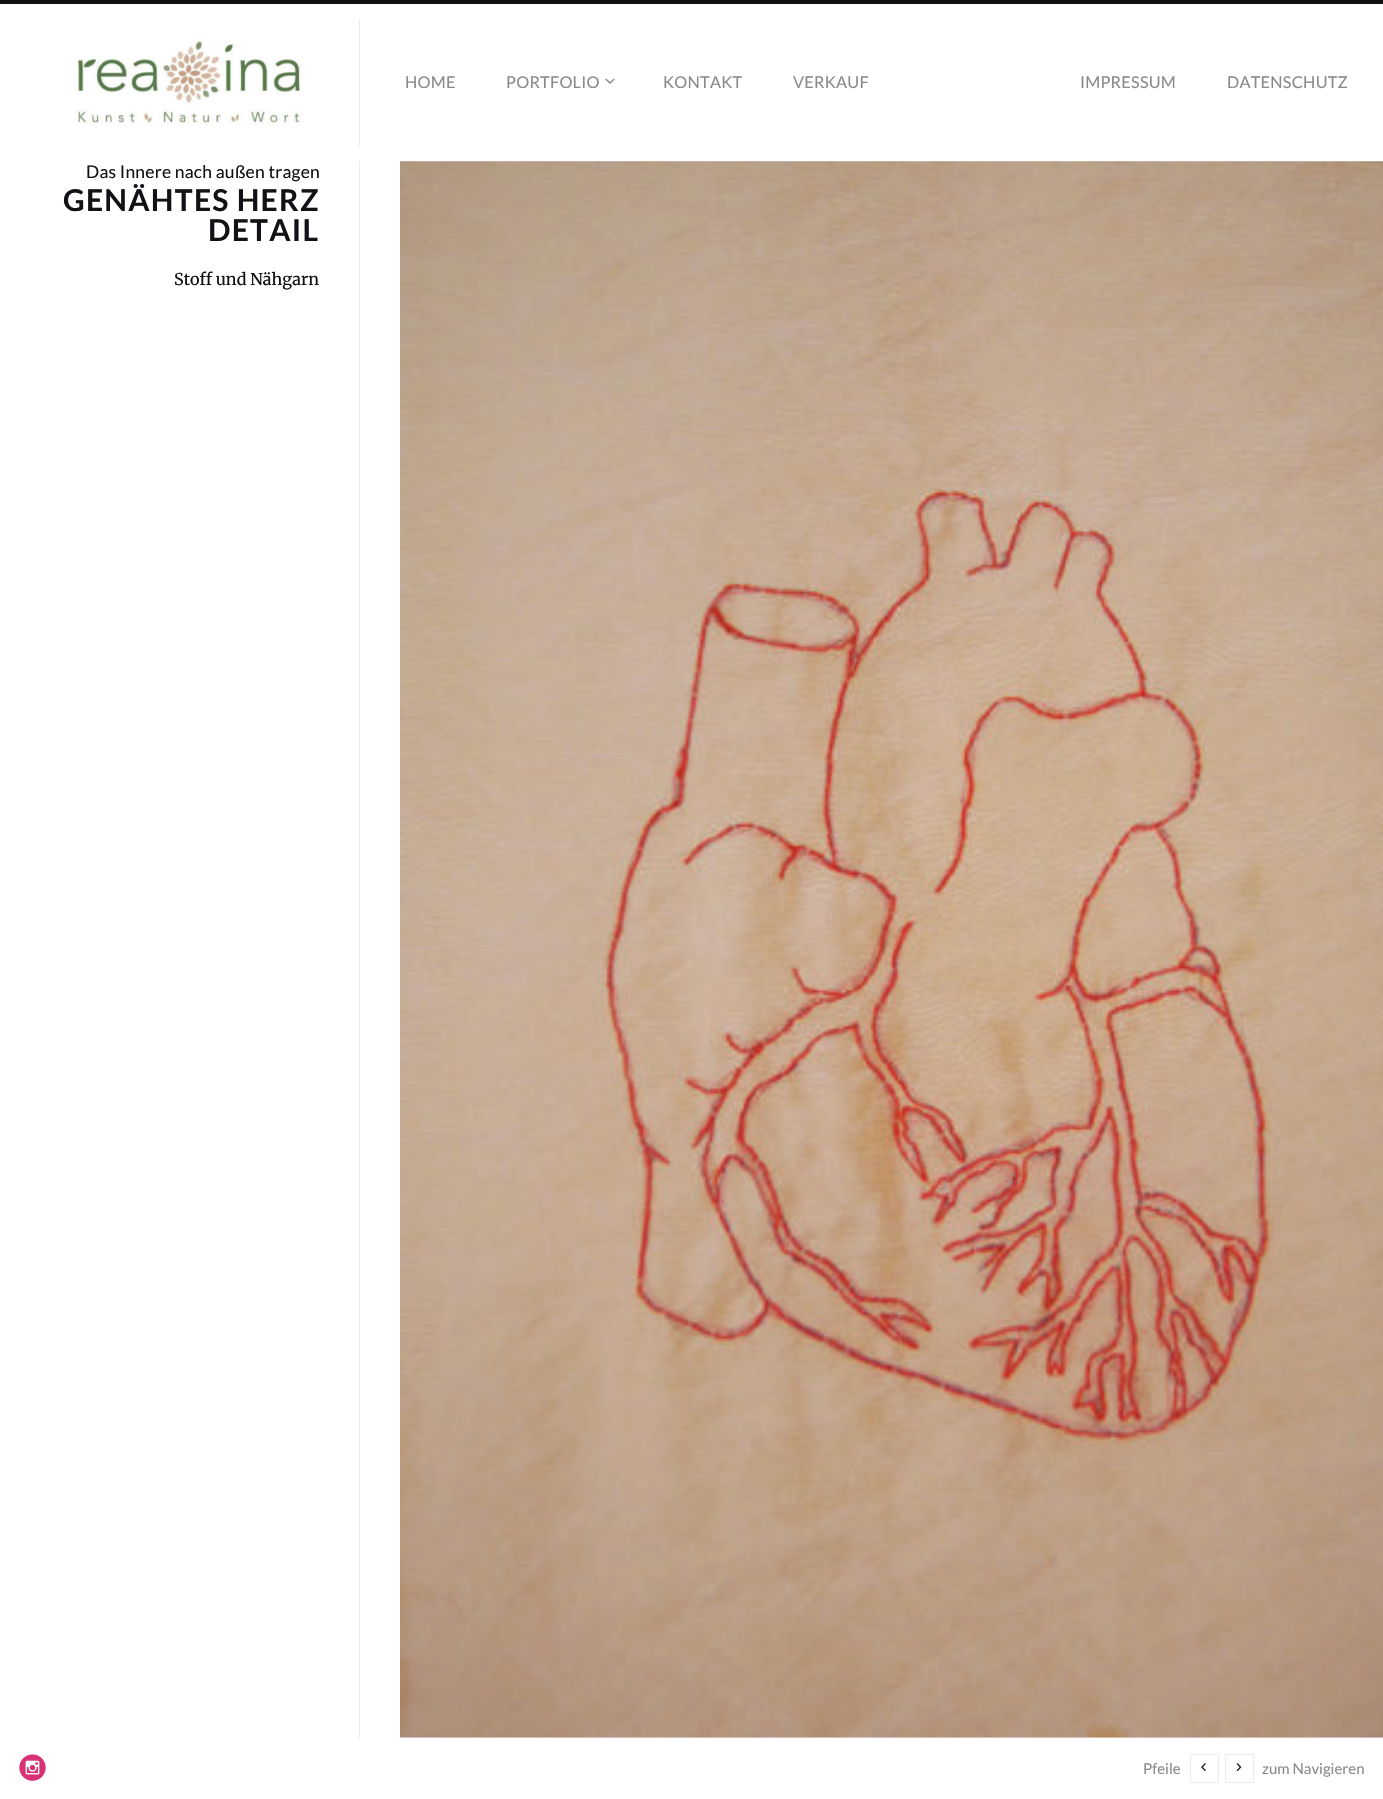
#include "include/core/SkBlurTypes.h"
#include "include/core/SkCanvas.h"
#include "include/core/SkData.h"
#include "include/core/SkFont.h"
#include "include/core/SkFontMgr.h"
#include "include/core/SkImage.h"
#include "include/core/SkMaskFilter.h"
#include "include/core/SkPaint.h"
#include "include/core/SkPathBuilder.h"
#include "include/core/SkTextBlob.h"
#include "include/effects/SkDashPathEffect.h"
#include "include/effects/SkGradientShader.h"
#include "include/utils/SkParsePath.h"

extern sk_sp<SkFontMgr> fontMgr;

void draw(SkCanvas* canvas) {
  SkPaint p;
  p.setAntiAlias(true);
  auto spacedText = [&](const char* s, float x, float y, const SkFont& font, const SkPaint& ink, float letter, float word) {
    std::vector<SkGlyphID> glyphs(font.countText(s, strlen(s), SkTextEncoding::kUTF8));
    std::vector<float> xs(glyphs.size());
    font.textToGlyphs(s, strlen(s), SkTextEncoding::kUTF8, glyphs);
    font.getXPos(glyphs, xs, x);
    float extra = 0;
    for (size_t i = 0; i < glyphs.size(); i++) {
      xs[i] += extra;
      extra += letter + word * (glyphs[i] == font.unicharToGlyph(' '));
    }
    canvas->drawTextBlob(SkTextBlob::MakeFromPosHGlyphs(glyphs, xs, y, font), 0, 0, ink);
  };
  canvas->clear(SK_ColorWHITE);
  p.setColor(SkColorSetRGB(17, 17, 22));
  canvas->drawRect(SkRect::MakeLTRB(0, 0, 1383, 4), p);
  p.setColor(SkColorSetRGB(235, 235, 235));
  canvas->drawRect(SkRect::MakeLTRB(359, 19, 360, 146), p);
  canvas->drawImageRect(SkImages::DeferredFromEncodedData(SkData::MakeFromFileName("images/1.png")), SkRect::MakeLTRB(74, 39, 303, 126), SkSamplingOptions());
  canvas->drawImageRect(SkImages::DeferredFromEncodedData(SkData::MakeFromFileName("images/2.png")), SkRect::MakeLTRB(605, 78, 615, 84), SkSamplingOptions());
  canvas->drawRect(SkRect::MakeLTRB(359, 161, 360, 1738), p);
  p.setColor(SkColorSetRGB(241, 241, 241));
  canvas->drawRect(SkRect::MakeLTRB(400, 161, 1383, 1738), p);
  canvas->drawImageRect(SkImages::DeferredFromEncodedData(SkData::MakeFromFileName("images/3.png")), SkRect::MakeLTRB(400, 161, 1383, 1738), SkSamplingOptions());
  canvas->drawImageRect(SkImages::DeferredFromEncodedData(SkData::MakeFromFileName("images/4.png")), SkRect::MakeLTRB(19, 1754, 46, 1781), SkSamplingOptions());
  p.setStyle(SkPaint::kStroke_Style);
  p.setStrokeWidth(1);
  p.setColor(SkColorSetRGB(234, 234, 234));
  canvas->drawRoundRect(SkRect::MakeLTRB(1190.5f, 1754.5f, 1218.5f, 1782.5f), 0.5f, 0.5f, p);
  canvas->drawImageRect(SkImages::DeferredFromEncodedData(SkData::MakeFromFileName("images/5.png")), SkRect::MakeLTRB(1201, 1763, 1206, 1772), SkSamplingOptions());
  canvas->drawRoundRect(SkRect::MakeLTRB(1225.5f, 1754.5f, 1253.5f, 1782.5f), 0.5f, 0.5f, p);
  canvas->drawImageRect(SkImages::DeferredFromEncodedData(SkData::MakeFromFileName("images/6.png")), SkRect::MakeLTRB(1236, 1763, 1242, 1772), SkSamplingOptions());
  SkFont font1(fontMgr->matchFamilyStyle("Lato", SkFontStyle::Normal()), 16.25f);
  font1.setSubpixel(true);
  p.setStyle(SkPaint::kFill_Style);
  p.setColor(SkColorSetRGB(138, 138, 138));
  spacedText("HOME", 405, 88, font1, p, 0.25f, 0);
  spacedText("PORTFOLIO", 506, 88, font1, p, 0.25f, 0);
  spacedText("KONTAKT", 663, 88, font1, p, 0.25f, 0);
  spacedText("VERKAUF", 793, 88, font1, p, 0.25f, 0);
  spacedText("IMPRESSUM", 1080, 88, font1, p, 0.25f, 0);
  spacedText("DATENSCHUTZ", 1227, 88, font1, p, 0.25f, 0);
  SkFont font2(fontMgr->matchFamilyStyle("Lato", SkFontStyle::Normal()), 17.5f);
  font2.setSubpixel(true);
  p.setColor(SkColorSetRGB(17, 17, 22));
  spacedText("Das Innere nach außen tragen", 86, 178, font2, p, 0.2f, 0);
  SkFont font3(fontMgr->matchFamilyStyle("Lato", SkFontStyle::Bold()), 30);
  font3.setSubpixel(true);
  spacedText("GENÄHTES HERZ", 63, 211, font3, p, 1.25f, 0);
  spacedText("DETAIL", 208, 241, font3, p, 1.25f, 0);
  SkFont font4(fontMgr->matchFamilyStyle("Merriweather", SkFontStyle(300, SkFontStyle::kNormal_Width, SkFontStyle::kUpright_Slant)), 16.25f);
  font4.setSubpixel(true);
  canvas->drawString("Stoff und Nähgarn", 174, 285, font4, p);
  SkFont font5(fontMgr->matchFamilyStyle("Lato", SkFontStyle::Normal()), 15);
  font5.setSubpixel(true);
  p.setColor(SkColorSetRGB(138, 138, 138));
  canvas->drawString("Pfeile", 1143, 1774, font5, p);
  canvas->drawString("zum Navigieren", 1262, 1774, font5, p);
}
